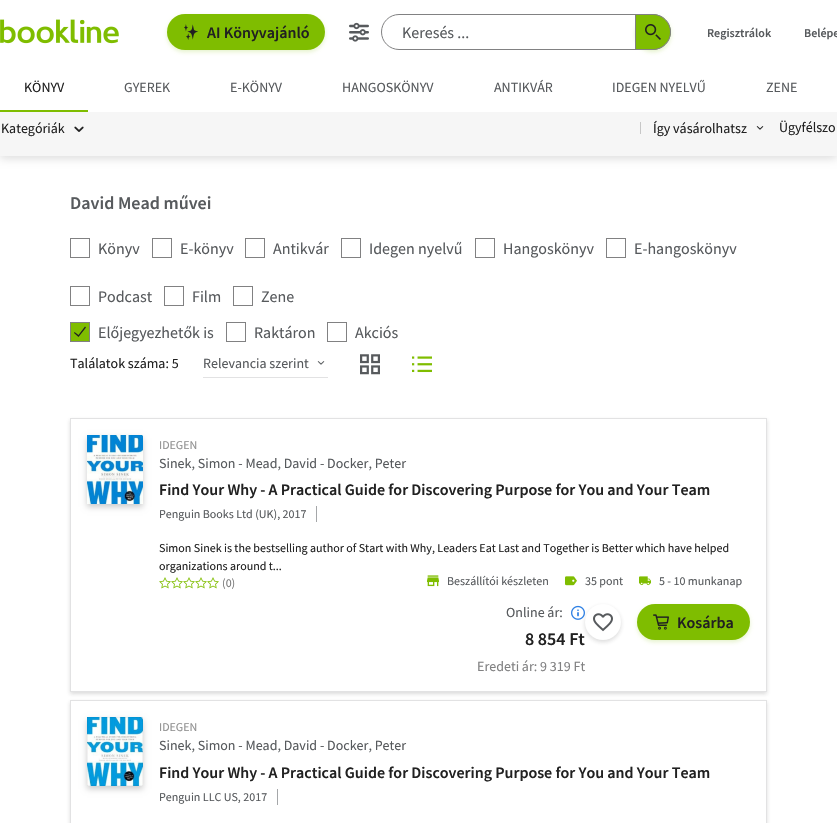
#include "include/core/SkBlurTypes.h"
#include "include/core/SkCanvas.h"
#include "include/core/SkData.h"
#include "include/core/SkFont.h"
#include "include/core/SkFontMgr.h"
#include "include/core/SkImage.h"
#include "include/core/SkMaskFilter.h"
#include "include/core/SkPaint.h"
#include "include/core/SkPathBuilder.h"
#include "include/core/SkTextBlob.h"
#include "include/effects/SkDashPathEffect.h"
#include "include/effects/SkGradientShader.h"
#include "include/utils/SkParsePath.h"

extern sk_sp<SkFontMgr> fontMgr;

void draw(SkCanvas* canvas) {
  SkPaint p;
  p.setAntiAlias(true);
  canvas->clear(SK_ColorWHITE);
  canvas->drawImageRect(SkImages::DeferredFromEncodedData(SkData::MakeFromFileName("images/1.png")), SkRect::MakeLTRB(0, 19, 119, 44), SkSamplingOptions());
  p.setColor(SkColorSetARGB(51, 127, 189, 0));
  p.setMaskFilter(SkMaskFilter::MakeBlur(kNormal_SkBlurStyle, 2));
  canvas->drawRoundRect(SkRect::MakeLTRB(167, 16, 325, 52), 18, 18, p);
  p.setMaskFilter(nullptr);
  p.setColor(SkColorSetRGB(127, 189, 0));
  canvas->drawRoundRect(SkRect::MakeLTRB(167, 14, 325, 50), 18, 18, p);
  canvas->drawImageRect(SkImages::DeferredFromEncodedData(SkData::MakeFromFileName("images/2.png")), SkRect::MakeLTRB(184, 24, 198, 40), SkSamplingOptions());
  canvas->drawImageRect(SkImages::DeferredFromEncodedData(SkData::MakeFromFileName("images/3.png")), SkRect::MakeLTRB(349, 22, 369, 42), SkSamplingOptions());
  p.setStyle(SkPaint::kStroke_Style);
  p.setStrokeWidth(1);
  p.setColor(SkColorSetRGB(129, 129, 130));
  canvas->drawRoundRect(SkRect::MakeLTRB(381.5f, 14.5f, 670.5f, 49.5f), 17.5f, 17.5f, p);
  p.setStyle(SkPaint::kFill_Style);
  p.setColor(SkColorSetARGB(51, 127, 189, 0));
  p.setMaskFilter(SkMaskFilter::MakeBlur(kNormal_SkBlurStyle, 2));
  canvas->drawRoundRect(SkRect::MakeLTRB(635, 16, 671, 52), 18, 18, p);
  p.setMaskFilter(nullptr);
  p.setColor(SkColorSetRGB(127, 189, 0));
  canvas->drawPath(SkPathBuilder().moveTo(635.5f, 14.5f).lineTo(653, 14.5f).cubicTo(662.5f, 14.5f, 670.5f, 22.5f, 670.5f, 32).cubicTo(670.5f, 41.5f, 662.5f, 49.5f, 653, 49.5f).lineTo(635.5f, 49.5f).close().detach(), p);
  p.setStyle(SkPaint::kStroke_Style);
  p.setColor(SkColorSetRGB(129, 129, 130));
  canvas->drawPath(SkPathBuilder().moveTo(635.5f, 14.5f).lineTo(653, 14.5f).cubicTo(662.5f, 14.5f, 670.5f, 22.5f, 670.5f, 32).cubicTo(670.5f, 41.5f, 662.5f, 49.5f, 653, 49.5f).lineTo(635.5f, 49.5f).close().detach(), p);
  canvas->drawImageRect(SkImages::DeferredFromEncodedData(SkData::MakeFromFileName("images/4.png")), SkRect::MakeLTRB(645, 24, 661, 40), SkSamplingOptions());
  p.setStyle(SkPaint::kFill_Style);
  p.setColor(SkColorSetRGB(127, 189, 0));
  canvas->drawRect(SkRect::MakeLTRB(0, 110, 88, 112), p);
  p.setColor(SkColorSetARGB(38, 0, 0, 0));
  p.setMaskFilter(SkMaskFilter::MakeBlur(kNormal_SkBlurStyle, 5));
  canvas->drawRect(SkRect::MakeLTRB(0, 148, 837, 158), p);
  p.setMaskFilter(nullptr);
  p.setColor(SkColorSetRGB(246, 246, 246));
  canvas->drawRect(SkRect::MakeLTRB(0, 112, 837, 156), p);
  canvas->drawImageRect(SkImages::DeferredFromEncodedData(SkData::MakeFromFileName("images/5.png")), SkRect::MakeLTRB(74, 126, 84, 132), SkSamplingOptions());
  p.setColor(SkColorSetRGB(199, 199, 199));
  canvas->drawRect(SkRect::MakeLTRB(640, 122, 641, 134), p);
  canvas->drawImageRect(SkImages::DeferredFromEncodedData(SkData::MakeFromFileName("images/6.png")), SkRect::MakeLTRB(756, 126, 764, 130), SkSamplingOptions());
  p.setStyle(SkPaint::kStroke_Style);
  p.setColor(SkColorSetRGB(129, 129, 130));
  canvas->drawRect(SkRect::MakeLTRB(70.5f, 238.5f, 89.5f, 257.5f), p);
  canvas->drawRect(SkRect::MakeLTRB(152.5f, 238.5f, 171.5f, 257.5f), p);
  canvas->drawRect(SkRect::MakeLTRB(245.5f, 238.5f, 264.5f, 257.5f), p);
  canvas->drawRect(SkRect::MakeLTRB(341.5f, 238.5f, 360.5f, 257.5f), p);
  canvas->drawRect(SkRect::MakeLTRB(475.5f, 238.5f, 494.5f, 257.5f), p);
  canvas->drawRect(SkRect::MakeLTRB(606.5f, 238.5f, 625.5f, 257.5f), p);
  canvas->drawRect(SkRect::MakeLTRB(70.5f, 286.5f, 89.5f, 305.5f), p);
  canvas->drawRect(SkRect::MakeLTRB(164.5f, 286.5f, 183.5f, 305.5f), p);
  canvas->drawRect(SkRect::MakeLTRB(233.5f, 286.5f, 252.5f, 305.5f), p);
  p.setStyle(SkPaint::kFill_Style);
  p.setColor(SkColorSetRGB(127, 189, 0));
  canvas->drawRect(SkRect::MakeLTRB(70.5f, 322.5f, 89.5f, 341.5f), p);
  p.setStyle(SkPaint::kStroke_Style);
  p.setColor(SkColorSetRGB(129, 129, 130));
  canvas->drawRect(SkRect::MakeLTRB(70.5f, 322.5f, 89.5f, 341.5f), p);
  p.setStyle(SkPaint::kFill_Style);
  p.setColor(SkColorSetRGB(33, 33, 33));
  canvas->drawPath(SkPathBuilder().moveTo(74, 333).lineTo(78.5f, 337).lineTo(86, 327.5f).lineTo(85, 326.5f).lineTo(78.5f, 335).lineTo(74.5f, 332).close().detach(), p);
  p.setStyle(SkPaint::kStroke_Style);
  p.setColor(SkColorSetRGB(129, 129, 130));
  canvas->drawRect(SkRect::MakeLTRB(226.5f, 322.5f, 245.5f, 341.5f), p);
  canvas->drawRect(SkRect::MakeLTRB(327.5f, 322.5f, 346.5f, 341.5f), p);
  p.setStyle(SkPaint::kFill_Style);
  p.setColor(SkColorSetRGB(226, 226, 227));
  canvas->drawRect(SkRect::MakeLTRB(203, 377, 328, 378), p);
  canvas->drawImageRect(SkImages::DeferredFromEncodedData(SkData::MakeFromFileName("images/7.png")), SkRect::MakeLTRB(317, 361, 325, 365), SkSamplingOptions());
  canvas->drawImageRect(SkImages::DeferredFromEncodedData(SkData::MakeFromFileName("images/8.png")), SkRect::MakeLTRB(360, 354, 380, 375), SkSamplingOptions());
  canvas->drawImageRect(SkImages::DeferredFromEncodedData(SkData::MakeFromFileName("images/9.png")), SkRect::MakeLTRB(412, 356, 432, 373), SkSamplingOptions());
  canvas->save();
  canvas->clipPath(SkPathBuilder(SkPathFillType::kEvenOdd).moveTo(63, 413).lineTo(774, 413).lineTo(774, 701).lineTo(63, 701).close().moveTo(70, 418).lineTo(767, 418).lineTo(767, 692).lineTo(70, 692).close().detach(), true);
  p.setColor(SkColorSetARGB(41, 33, 33, 33));
  p.setMaskFilter(SkMaskFilter::MakeBlur(kNormal_SkBlurStyle, 2));
  canvas->drawRect(SkRect::MakeLTRB(70, 420, 767, 694), p);
  p.setMaskFilter(nullptr);
  canvas->restore();
  p.setStyle(SkPaint::kStroke_Style);
  p.setColor(SkColorSetRGB(226, 226, 227));
  canvas->drawRect(SkRect::MakeLTRB(70.5f, 418.5f, 766.5f, 691.5f), p);
  p.setStyle(SkPaint::kFill_Style);
  p.setColor(SkColorSetARGB(51, 0, 0, 0));
  p.setMaskFilter(SkMaskFilter::MakeBlur(kNormal_SkBlurStyle, 3));
  canvas->drawRect(SkRect::MakeLTRB(87, 438, 143, 507), p);
  p.setMaskFilter(nullptr);
  canvas->drawImageRect(SkImages::DeferredFromEncodedData(SkData::MakeFromFileName("images/10.png")), SkRect::MakeLTRB(87, 435, 143, 504), SkSamplingOptions());
  p.setColor(SkColorSetRGB(165, 167, 169));
  canvas->drawRect(SkRect::MakeLTRB(316, 506, 317, 522), p);
  canvas->drawImageRect(SkImages::DeferredFromEncodedData(SkData::MakeFromFileName("images/11.png")), SkRect::MakeLTRB(159, 577, 219, 589), SkSamplingOptions());
  canvas->drawImageRect(SkImages::DeferredFromEncodedData(SkData::MakeFromFileName("images/12.png")), SkRect::MakeLTRB(427, 575, 439, 587), SkSamplingOptions());
  canvas->drawImageRect(SkImages::DeferredFromEncodedData(SkData::MakeFromFileName("images/13.png")), SkRect::MakeLTRB(565, 576, 577, 586), SkSamplingOptions());
  canvas->drawImageRect(SkImages::DeferredFromEncodedData(SkData::MakeFromFileName("images/14.png")), SkRect::MakeLTRB(639, 576, 651, 586), SkSamplingOptions());
  canvas->drawImageRect(SkImages::DeferredFromEncodedData(SkData::MakeFromFileName("images/15.png")), SkRect::MakeLTRB(571, 605, 585, 620), SkSamplingOptions());
  p.setColor(SkColorSetARGB(41, 33, 33, 33));
  p.setMaskFilter(SkMaskFilter::MakeBlur(kNormal_SkBlurStyle, 2));
  canvas->drawRoundRect(SkRect::MakeLTRB(585, 606, 621, 642), 18, 18, p);
  p.setMaskFilter(nullptr);
  p.setColor(SK_ColorWHITE);
  canvas->drawCircle(603, 622, 18, p);
  canvas->drawImageRect(SkImages::DeferredFromEncodedData(SkData::MakeFromFileName("images/16.png")), SkRect::MakeLTRB(593, 613, 613, 632), SkSamplingOptions());
  p.setColor(SkColorSetARGB(51, 127, 189, 0));
  p.setMaskFilter(SkMaskFilter::MakeBlur(kNormal_SkBlurStyle, 2));
  canvas->drawRoundRect(SkRect::MakeLTRB(637, 606, 750, 642), 18, 18, p);
  p.setMaskFilter(nullptr);
  p.setColor(SkColorSetRGB(127, 189, 0));
  canvas->drawRoundRect(SkRect::MakeLTRB(637, 604, 750, 640), 18, 18, p);
  canvas->drawImageRect(SkImages::DeferredFromEncodedData(SkData::MakeFromFileName("images/17.png")), SkRect::MakeLTRB(653, 614, 669, 630), SkSamplingOptions());
  canvas->save();
  canvas->clipPath(SkPathBuilder(SkPathFillType::kEvenOdd).moveTo(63, 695).lineTo(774, 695).lineTo(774, 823).lineTo(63, 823).close().moveTo(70, 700).lineTo(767, 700).lineTo(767, 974).lineTo(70, 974).close().detach(), true);
  p.setColor(SkColorSetARGB(41, 33, 33, 33));
  p.setMaskFilter(SkMaskFilter::MakeBlur(kNormal_SkBlurStyle, 2));
  canvas->drawRect(SkRect::MakeLTRB(70, 702, 767, 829), p);
  p.setMaskFilter(nullptr);
  canvas->restore();
  p.setStyle(SkPaint::kStroke_Style);
  p.setColor(SkColorSetRGB(226, 226, 227));
  canvas->drawRect(SkRect::MakeLTRB(70.5f, 700.5f, 766.5f, 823.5f), p);
  p.setStyle(SkPaint::kFill_Style);
  p.setColor(SkColorSetARGB(51, 0, 0, 0));
  p.setMaskFilter(SkMaskFilter::MakeBlur(kNormal_SkBlurStyle, 3));
  canvas->drawRect(SkRect::MakeLTRB(87, 720, 143, 789), p);
  p.setMaskFilter(nullptr);
  canvas->drawImageRect(SkImages::DeferredFromEncodedData(SkData::MakeFromFileName("images/18.png")), SkRect::MakeLTRB(87, 717, 143, 786), SkSamplingOptions());
  p.setColor(SkColorSetRGB(165, 167, 169));
  canvas->drawRect(SkRect::MakeLTRB(277, 789, 278, 805), p);
  SkFont font1(fontMgr->matchFamilyStyle("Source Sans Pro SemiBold", SkFontStyle(600, SkFontStyle::kNormal_Width, SkFontStyle::kUpright_Slant)), 16);
  font1.setSubpixel(true);
  p.setColor(SkColorSetRGB(33, 33, 33));
  canvas->drawString("AI Könyvajánló", 207, 38, font1, p);
  SkFont font2(fontMgr->matchFamilyStyle("Source Sans Pro", SkFontStyle::Normal()), 16);
  font2.setSubpixel(true);
  p.setColor(SkColorSetRGB(87, 90, 93));
  canvas->drawString("Keresés ...", 402, 38, font2, p);
  SkFont font3(fontMgr->matchFamilyStyle("Source Sans Pro SemiBold", SkFontStyle(600, SkFontStyle::kNormal_Width, SkFontStyle::kUpright_Slant)), 12);
  font3.setSubpixel(true);
  canvas->drawString("Regisztrálok", 707, 37, font3, p);
  canvas->drawString("Belépe", 804, 37, font3, p);
  SkFont font4(fontMgr->matchFamilyStyle("Source Sans Pro", SkFontStyle::Normal()), 14);
  font4.setSubpixel(true);
  p.setColor(SkColorSetRGB(33, 33, 33));
  canvas->drawString("KÖNYV", 24, 92, font4, p);
  p.setColor(SkColorSetRGB(87, 90, 93));
  canvas->drawString("GYEREK", 124, 92, font4, p);
  canvas->drawString("E-KÖNYV", 230, 92, font4, p);
  canvas->drawString("HANGOSKÖNYV", 342, 92, font4, p);
  canvas->drawString("ANTIKVÁR", 494, 92, font4, p);
  canvas->drawString("IDEGEN NYELVŰ", 612, 92, font4, p);
  canvas->drawString("ZENE", 766, 92, font4, p);
  p.setColor(SkColorSetRGB(33, 33, 33));
  canvas->drawString("Kategóriák", 1, 133, font4, p);
  canvas->drawString("Így vásárolhatsz", 653, 133, font4, p);
  canvas->drawString("Ügyfélszo", 779, 132, font4, p);
  SkFont font5(fontMgr->matchFamilyStyle("Source Sans Pro SemiBold", SkFontStyle(600, SkFontStyle::kNormal_Width, SkFontStyle::kUpright_Slant)), 18);
  font5.setSubpixel(true);
  p.setColor(SkColorSetRGB(87, 90, 93));
  canvas->drawString("David Mead művei", 70, 209, font5, p);
  canvas->drawString("Könyv", 98, 254, font2, p);
  canvas->drawString("E-könyv", 180, 254, font2, p);
  canvas->drawString("Antikvár", 273, 254, font2, p);
  canvas->drawString("Idegen nyelvű", 369, 254, font2, p);
  canvas->drawString("Hangoskönyv", 503, 254, font2, p);
  canvas->drawString("E-hangoskönyv", 634, 254, font2, p);
  canvas->drawString("Podcast", 98, 302, font2, p);
  canvas->drawString("Film", 192, 302, font2, p);
  canvas->drawString("Zene", 261, 302, font2, p);
  canvas->drawString("Előjegyezhetők is", 98, 338, font2, p);
  canvas->drawString("Raktáron", 254, 338, font2, p);
  canvas->drawString("Akciós", 355, 338, font2, p);
  p.setColor(SkColorSetRGB(33, 33, 33));
  canvas->drawString("Találatok száma: 5", 70, 368, font4, p);
  p.setColor(SkColorSetRGB(87, 90, 93));
  canvas->drawString("Relevancia szerint", 203, 368, font4, p);
  SkFont font6(fontMgr->matchFamilyStyle("Source Sans Pro", SkFontStyle::Normal()), 12);
  font6.setSubpixel(true);
  p.setColor(SkColorSetRGB(144, 144, 144));
  canvas->drawString("IDEGEN", 159, 449, font6, p);
  p.setColor(SkColorSetRGB(87, 90, 93));
  canvas->drawString("Sinek, Simon - Mead, David - Docker, Peter", 159, 468, font4, p);
  p.setColor(SkColorSetRGB(33, 33, 33));
  canvas->drawString("Find Your Why - A Practical Guide for Discovering Purpose for You and Your Team", 159, 495, font1, p);
  p.setColor(SkColorSetRGB(87, 90, 93));
  canvas->drawString("Penguin Books Ltd (UK), 2017", 159, 518, font6, p);
  p.setColor(SkColorSetRGB(33, 33, 33));
  canvas->drawString("Simon Sinek is the bestselling author of Start with Why, Leaders Eat Last and Together is Better which have helped", 159, 552, font6, p);
  canvas->drawString("organizations around t...", 159, 570, font6, p);
  p.setColor(SkColorSetRGB(122, 122, 122));
  canvas->drawString("(0)", 222, 587, font6, p);
  p.setColor(SkColorSetRGB(87, 90, 93));
  canvas->drawString("Beszállítói készleten", 447, 585, font6, p);
  canvas->drawString("35 pont", 585, 585, font6, p);
  canvas->drawString("5 - 10 munkanap", 659, 585, font6, p);
  canvas->drawString("Online ár:", 506, 617, font4, p);
  p.setColor(SkColorSetRGB(33, 33, 33));
  canvas->drawString("8 854 Ft", 525, 645, font5, p);
  p.setColor(SkColorSetRGB(129, 129, 130));
  canvas->drawString("Eredeti ár: 9 319 Ft", 477, 671, font4, p);
  p.setColor(SkColorSetRGB(33, 33, 33));
  canvas->drawString("Kosárba", 677, 628, font1, p);
  p.setColor(SkColorSetRGB(144, 144, 144));
  canvas->drawString("IDEGEN", 159, 731, font6, p);
  p.setColor(SkColorSetRGB(87, 90, 93));
  canvas->drawString("Sinek, Simon - Mead, David - Docker, Peter", 159, 750, font4, p);
  p.setColor(SkColorSetRGB(33, 33, 33));
  canvas->drawString("Find Your Why - A Practical Guide for Discovering Purpose for You and Your Team", 159, 778, font1, p);
  p.setColor(SkColorSetRGB(87, 90, 93));
  canvas->drawString("Penguin LLC US, 2017", 159, 801, font6, p);
}
